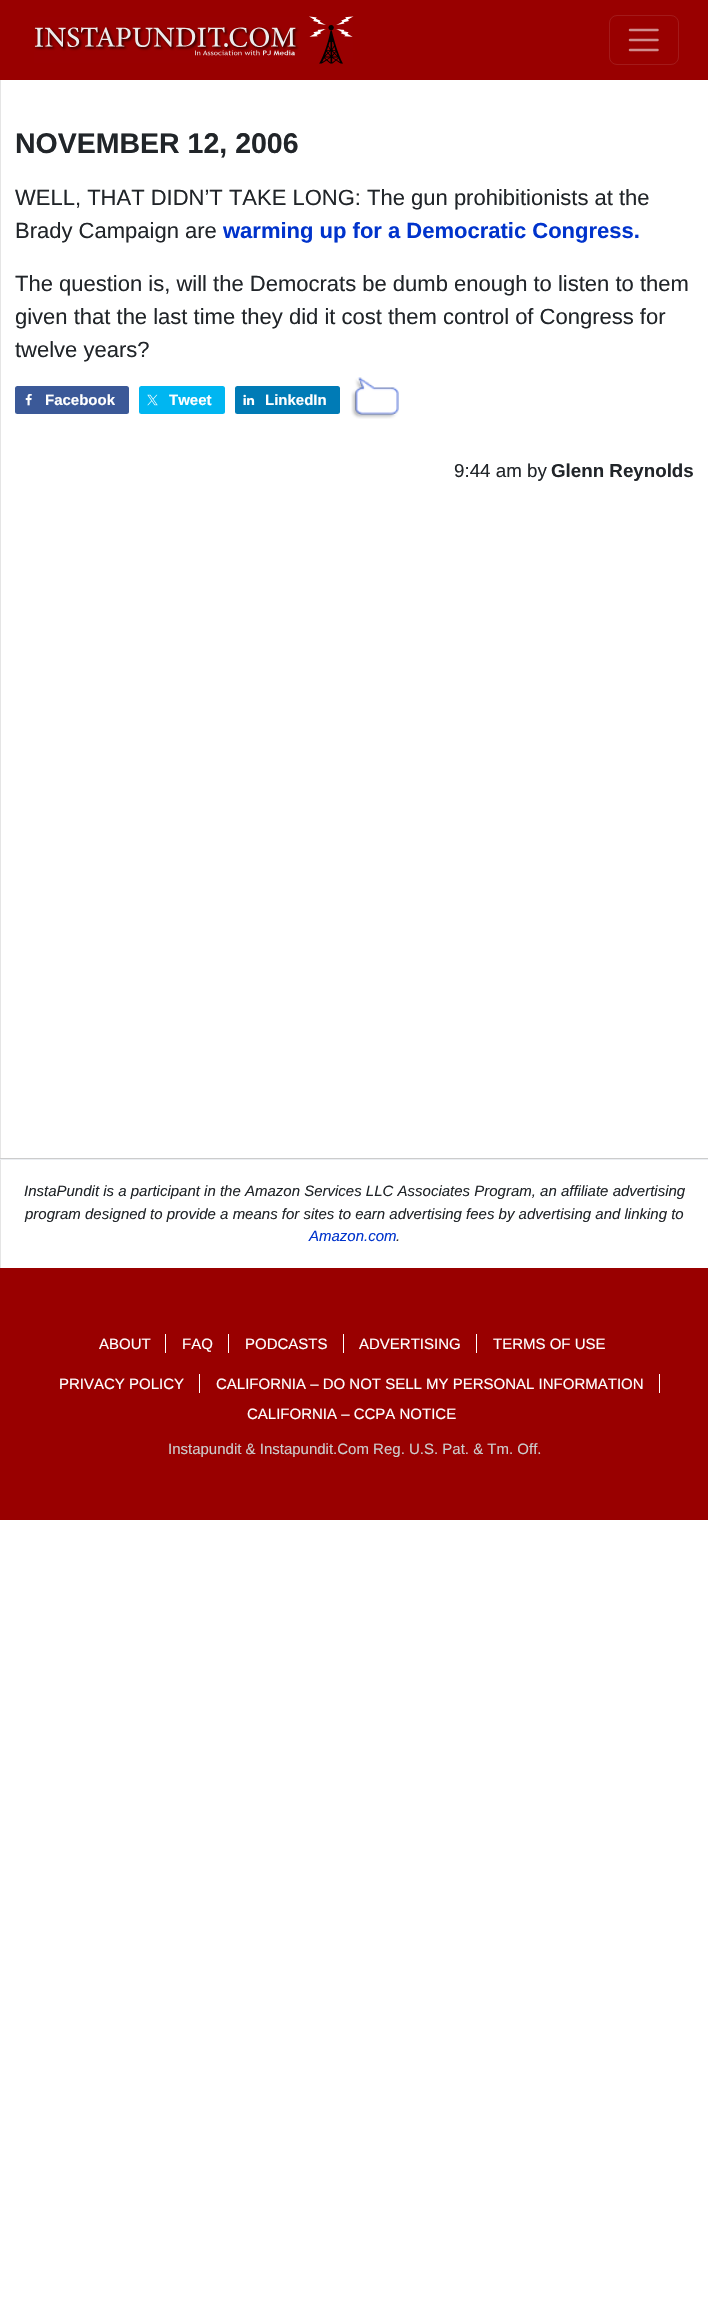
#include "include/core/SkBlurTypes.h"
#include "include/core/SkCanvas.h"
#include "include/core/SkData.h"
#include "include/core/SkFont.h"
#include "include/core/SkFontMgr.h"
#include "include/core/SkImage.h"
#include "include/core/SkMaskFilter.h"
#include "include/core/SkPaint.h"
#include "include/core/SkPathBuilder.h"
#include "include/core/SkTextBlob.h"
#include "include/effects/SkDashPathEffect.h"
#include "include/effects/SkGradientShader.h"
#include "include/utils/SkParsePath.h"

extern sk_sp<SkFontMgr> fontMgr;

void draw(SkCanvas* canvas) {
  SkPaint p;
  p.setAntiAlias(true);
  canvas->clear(SK_ColorWHITE);
  p.setColor(SkColorSetRGB(153, 0, 0));
  canvas->drawRect(SkRect::MakeLTRB(0, 0, 708, 80), p);
  canvas->drawImageRect(SkImages::DeferredFromEncodedData(SkData::MakeFromFileName("images/1.png")), SkRect::MakeLTRB(34, 16, 354, 64), SkSamplingOptions());
  p.setStyle(SkPaint::kStroke_Style);
  p.setStrokeWidth(1);
  p.setColor(SkColorSetRGB(163, 26, 26));
  canvas->drawRoundRect(SkRect::MakeLTRB(609.5f, 15.5f, 678.5f, 64.5f), 7.5f, 7.5f, p);
  p.setStrokeWidth(2.5f);
  p.setStrokeCap(SkPaint::kRound_Cap);
  p.setColor(SkColorSetRGB(209, 140, 140));
  canvas->drawPath(SkPathBuilder().moveTo(630, 30).lineTo(657.5f, 30).moveTo(630, 40).lineTo(657.5f, 40).moveTo(630, 50).lineTo(657.5f, 50).detach(), p);
  p.setStyle(SkPaint::kFill_Style);
  p.setColor(SkColorSetRGB(229, 229, 229));
  canvas->drawRect(SkRect::MakeLTRB(0, 80, 1, 1268), p);
  p.setColor(SkColorSetRGB(204, 204, 204));
  canvas->drawRect(SkRect::MakeLTRB(0, 1158, 708, 1159), p);
  p.setColor(SkColorSetRGB(59, 89, 152));
  canvas->drawRoundRect(SkRect::MakeLTRB(15, 386, 129, 414), 2.5f, 2.5f, p);
  canvas->drawImageRect(SkImages::DeferredFromEncodedData(SkData::MakeFromFileName("images/2.png")), SkRect::MakeLTRB(25, 394, 32, 406), SkSamplingOptions());
  p.setColor(SkColorSetRGB(0, 182, 241));
  canvas->drawRoundRect(SkRect::MakeLTRB(139, 386, 225, 414), 2.5f, 2.5f, p);
  canvas->drawImageRect(SkImages::DeferredFromEncodedData(SkData::MakeFromFileName("images/3.png")), SkRect::MakeLTRB(147, 394, 158, 406), SkSamplingOptions());
  p.setColor(SkColorSetRGB(0, 123, 182));
  canvas->drawRoundRect(SkRect::MakeLTRB(235, 386, 340, 414), 2.5f, 2.5f, p);
  canvas->drawImageRect(SkImages::DeferredFromEncodedData(SkData::MakeFromFileName("images/4.png")), SkRect::MakeLTRB(243, 394, 255, 405), SkSamplingOptions());
  canvas->drawImageRect(SkImages::DeferredFromEncodedData(SkData::MakeFromFileName("images/5.png")), SkRect::MakeLTRB(351, 377, 399, 419), SkSamplingOptions());
  p.setColor(SkColorSetRGB(235, 238, 242));
  canvas->drawRect(SkRect::MakeLTRB(0, 1159, 708, 1160), p);
  p.setColor(SkColorSetRGB(153, 0, 0));
  canvas->drawRect(SkRect::MakeLTRB(0, 1268, 708, 1520), p);
  p.setColor(SK_ColorWHITE);
  canvas->drawRect(SkRect::MakeLTRB(165, 1334, 166, 1353), p);
  canvas->drawRect(SkRect::MakeLTRB(228, 1334, 229, 1353), p);
  canvas->drawRect(SkRect::MakeLTRB(343, 1334, 344, 1353), p);
  canvas->drawRect(SkRect::MakeLTRB(476, 1334, 477, 1353), p);
  canvas->drawRect(SkRect::MakeLTRB(199, 1374, 200, 1393), p);
  canvas->drawRect(SkRect::MakeLTRB(659, 1374, 660, 1393), p);
  SkFont font1(fontMgr->matchFamilyStyle("Liberation Sans", SkFontStyle::Bold()), 28.5f);
  font1.setSubpixel(true);
  p.setColor(SkColorSetRGB(33, 37, 41));
  canvas->drawString("NOVEMBER 12, 2006", 15, 153, font1, p);
  SkFont font2(fontMgr->matchFamilyStyle("Liberation Sans", SkFontStyle::Normal()), 22);
  font2.setSubpixel(true);
  canvas->drawString("WELL, THAT DIDN’T TAKE LONG: The gun prohibitionists at the", 15, 205, font2, p);
  canvas->drawString("Brady Campaign are", 15, 238, font2, p);
  SkFont font3(fontMgr->matchFamilyStyle("Liberation Sans", SkFontStyle::Bold()), 22);
  font3.setSubpixel(true);
  p.setColor(SkColorSetRGB(0, 51, 204));
  canvas->drawString("warming up for a Democratic Congress.", 223, 238, font3, p);
  p.setColor(SkColorSetRGB(33, 37, 41));
  canvas->drawString("The question is, will the Democrats be dumb enough to listen to them", 15, 291, font2, p);
  canvas->drawString("given that the last time they did it cost them control of Congress for", 15, 324, font2, p);
  canvas->drawString("twelve years?", 15, 357, font2, p);
  SkFont font4(fontMgr->matchFamilyStyle("Liberation Sans", SkFontStyle::Bold()), 15);
  font4.setSubpixel(true);
  p.setColor(SK_ColorWHITE);
  canvas->drawString("Facebook", 45, 405, font4, p);
  canvas->drawString("Tweet", 169, 405, font4, p);
  canvas->drawString("LinkedIn", 265, 405, font4, p);
  SkFont font5(fontMgr->matchFamilyStyle("Liberation Sans", SkFontStyle::Normal()), 18.75f);
  font5.setSubpixel(true);
  p.setColor(SkColorSetRGB(33, 37, 41));
  canvas->drawString("9:44 am by", 454, 477, font5, p);
  SkFont font6(fontMgr->matchFamilyStyle("Liberation Sans", SkFontStyle::Bold()), 18.75f);
  font6.setSubpixel(true);
  canvas->drawString("Glenn Reynolds", 551, 477, font6, p);
  SkFont font7(fontMgr->matchFamilyStyle("Liberation Sans", SkFontStyle::Italic()), 15);
  font7.setSubpixel(true);
  canvas->drawString("InstaPundit is a participant in the Amazon Services LLC Associates Program, an affiliate advertising", 24, 1196, font7, p);
  canvas->drawString("program designed to provide a means for sites to earn advertising fees by advertising and linking to", 25, 1219, font7, p);
  p.setColor(SkColorSetRGB(0, 51, 204));
  canvas->drawString("Amazon.com", 309, 1241, font7, p);
  p.setColor(SkColorSetRGB(33, 37, 41));
  canvas->drawString(".", 396, 1241, font7, p);
  SkFont font8(fontMgr->matchFamilyStyle("Liberation Sans", SkFontStyle::Normal()), 15);
  font8.setSubpixel(true);
  p.setColor(SK_ColorWHITE);
  canvas->drawString("ABOUT", 99, 1349, font8, p);
  canvas->drawString("FAQ", 182, 1349, font8, p);
  canvas->drawString("PODCASTS", 245, 1349, font8, p);
  canvas->drawString("ADVERTISING", 359, 1349, font8, p);
  canvas->drawString("TERMS OF USE", 493, 1349, font8, p);
  canvas->drawString("PRIVACY POLICY", 59, 1389, font8, p);
  canvas->drawString("CALIFORNIA – DO NOT SELL MY PERSONAL INFORMATION", 216, 1389, font8, p);
  canvas->drawString("CALIFORNIA – CCPA NOTICE", 247, 1419, font8, p);
  p.setColor(SkColorSetRGB(204, 204, 204));
  canvas->drawString("Instapundit & Instapundit.Com Reg. U.S. Pat. & Tm. Off.", 168, 1454, font8, p);
}
